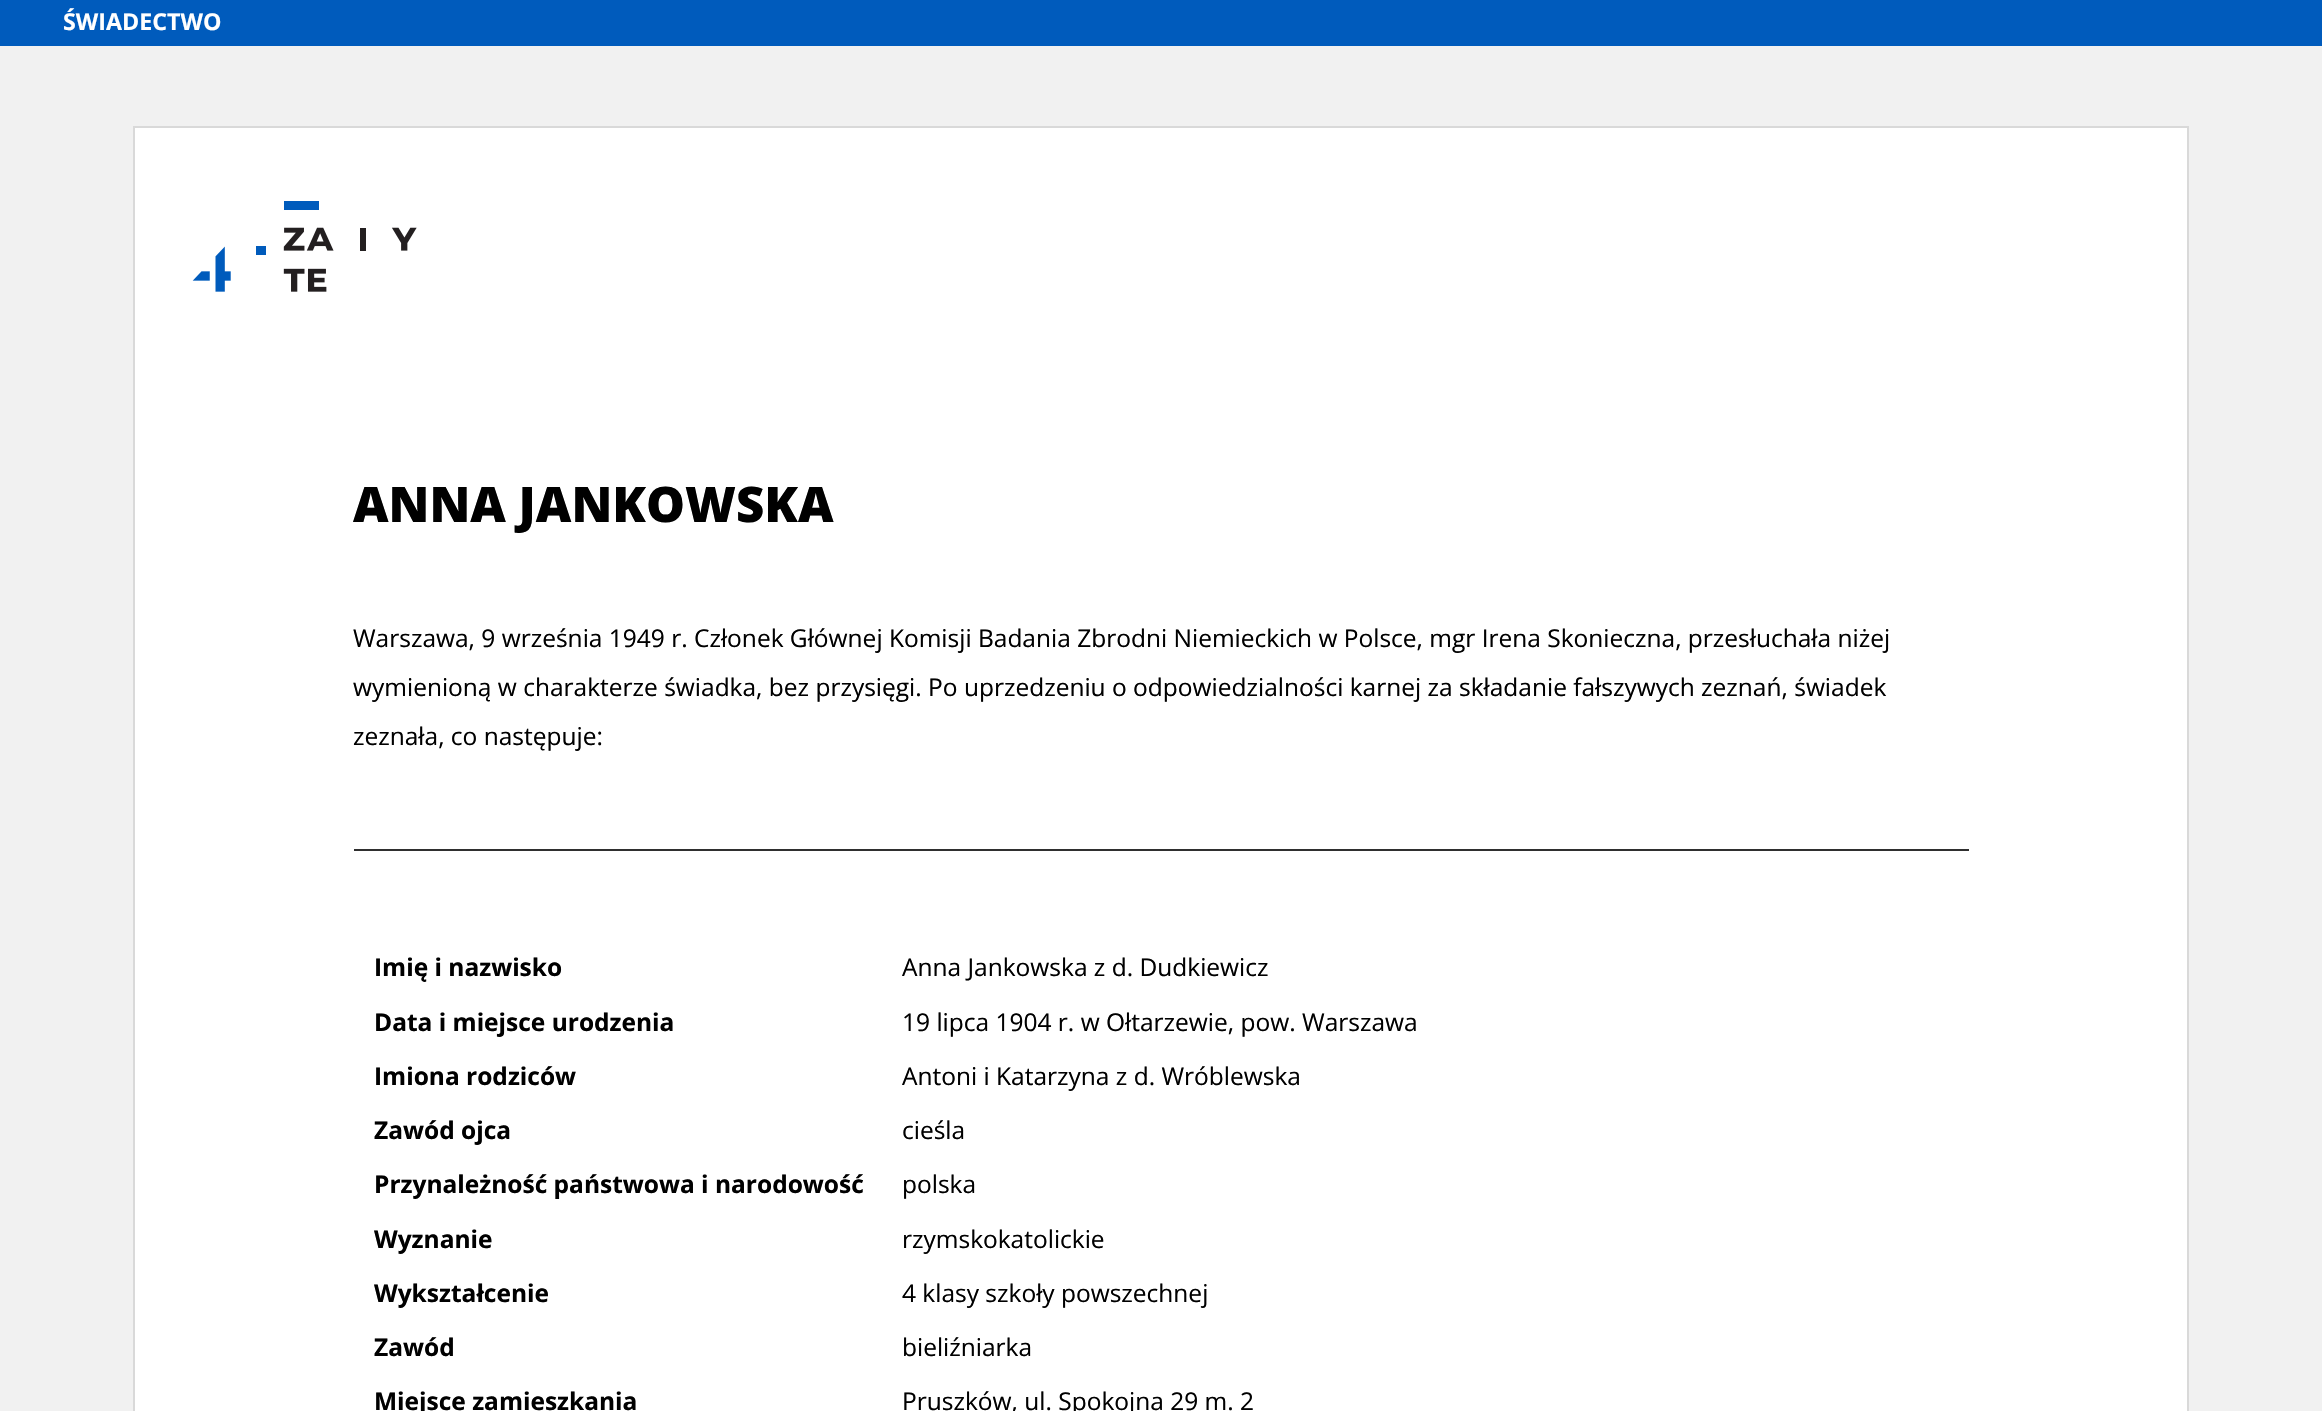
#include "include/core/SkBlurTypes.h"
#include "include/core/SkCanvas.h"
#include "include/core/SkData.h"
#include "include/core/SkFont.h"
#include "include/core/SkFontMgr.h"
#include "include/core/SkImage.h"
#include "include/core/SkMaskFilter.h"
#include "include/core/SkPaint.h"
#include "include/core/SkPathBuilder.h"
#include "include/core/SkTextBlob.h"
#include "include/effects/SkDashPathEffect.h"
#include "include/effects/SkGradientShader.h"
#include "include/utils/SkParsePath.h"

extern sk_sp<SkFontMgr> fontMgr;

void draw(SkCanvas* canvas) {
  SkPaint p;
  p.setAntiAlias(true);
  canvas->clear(SkColorSetRGB(241, 241, 241));
  p.setColor(SK_ColorWHITE);
  canvas->drawRect(SkRect::MakeLTRB(134, 127, 2188, 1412), p);
  p.setStyle(SkPaint::kStroke_Style);
  p.setStrokeWidth(2);
  p.setColor(SkColorSetRGB(217, 217, 217));
  canvas->drawRect(SkRect::MakeLTRB(134, 127, 2188, 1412), p);
  p.setStyle(SkPaint::kFill_Style);
  p.setColor(SkColorSetRGB(0, 91, 188));
  canvas->drawRect(SkRect::MakeLTRB(0, 0, 2322, 46), p);
  canvas->drawImageRect(SkImages::DeferredFromEncodedData(SkData::MakeFromFileName("images/1.png")), SkRect::MakeLTRB(192, 201, 417, 292), SkSamplingOptions());
  p.setColor(SkColorSetRGB(47, 47, 47));
  canvas->drawRect(SkRect::MakeLTRB(354, 849, 1969, 851), p);
  SkFont font1(fontMgr->matchFamilyStyle("Open Sans", SkFontStyle::Bold()), 23.25f);
  font1.setSubpixel(true);
  p.setColor(SK_ColorWHITE);
  canvas->drawString("ŚWIADECTWO", 63, 30, font1, p);
  SkFont font2(fontMgr->matchFamilyStyle("Open Sans", SkFontStyle(800, SkFontStyle::kNormal_Width, SkFontStyle::kUpright_Slant)), 49);
  font2.setSubpixel(true);
  p.setColor(SK_ColorBLACK);
  canvas->drawString("ANNA JANKOWSKA", 353, 522, font2, p);
  SkFont font3(fontMgr->matchFamilyStyle("Open Sans", SkFontStyle::Normal()), 24.5f);
  font3.setSubpixel(true);
  canvas->drawString("Warszawa, 9 września 1949 r. Członek Głównej Komisji Badania Zbrodni Niemieckich w Polsce, mgr Irena Skonieczna, przesłuchała niżej", 353, 647, font3, p);
  canvas->drawString("wymienioną w charakterze świadka, bez przysięgi. Po uprzedzeniu o odpowiedzialności karnej za składanie fałszywych zeznań, świadek", 353, 696, font3, p);
  canvas->drawString("zeznała, co następuje:", 353, 745, font3, p);
  SkFont font4(fontMgr->matchFamilyStyle("Open Sans", SkFontStyle::Bold()), 24.5f);
  font4.setSubpixel(true);
  canvas->drawString("Imię i nazwisko", 374, 976, font4, p);
  canvas->drawString("Anna Jankowska z d. Dudkiewicz", 902, 976, font3, p);
  canvas->drawString("Data i miejsce urodzenia", 374, 1031, font4, p);
  canvas->drawString("19 lipca 1904 r. w Ołtarzewie, pow. Warszawa", 902, 1031, font3, p);
  canvas->drawString("Imiona rodziców", 374, 1085, font4, p);
  canvas->drawString("Antoni i Katarzyna z d. Wróblewska", 902, 1085, font3, p);
  canvas->drawString("Zawód ojca", 374, 1139, font4, p);
  canvas->drawString("cieśla", 902, 1139, font3, p);
  canvas->drawString("Przynależność państwowa i narodowość", 374, 1193, font4, p);
  canvas->drawString("polska", 902, 1193, font3, p);
  canvas->drawString("Wyznanie", 374, 1248, font4, p);
  canvas->drawString("rzymskokatolickie", 902, 1248, font3, p);
  canvas->drawString("Wykształcenie", 374, 1302, font4, p);
  canvas->drawString("4 klasy szkoły powszechnej", 902, 1302, font3, p);
  canvas->drawString("Zawód", 374, 1356, font4, p);
  canvas->drawString("bieliźniarka", 902, 1356, font3, p);
  canvas->drawString("Miejsce zamieszkania", 374, 1410, font4, p);
  canvas->drawString("Pruszków, ul. Spokojna 29 m. 2", 902, 1410, font3, p);
}
